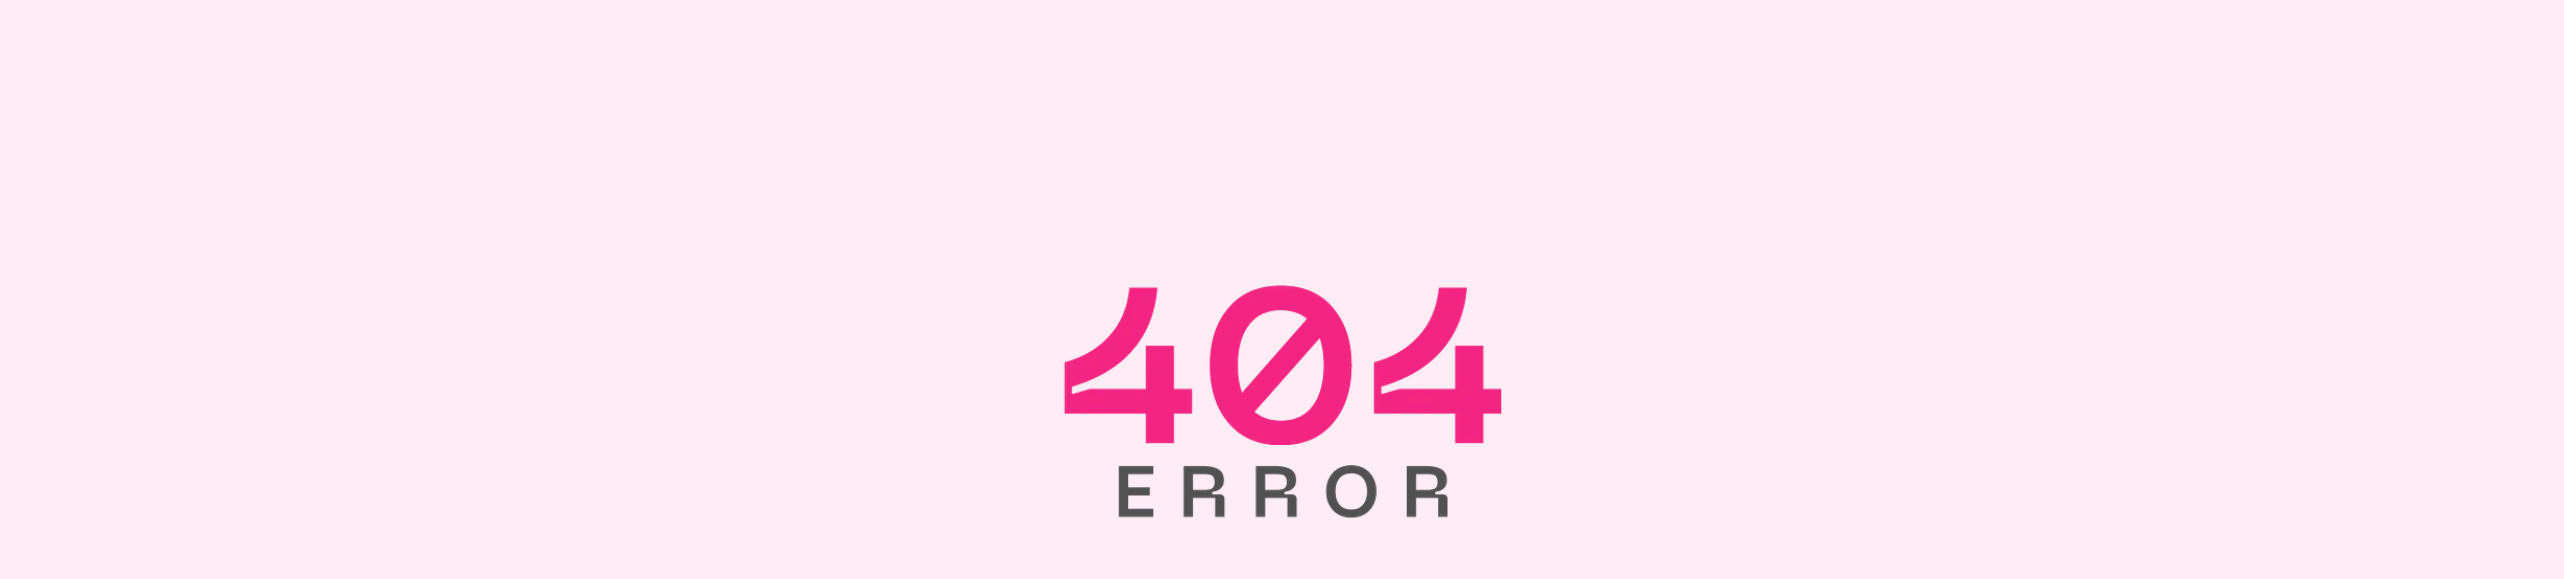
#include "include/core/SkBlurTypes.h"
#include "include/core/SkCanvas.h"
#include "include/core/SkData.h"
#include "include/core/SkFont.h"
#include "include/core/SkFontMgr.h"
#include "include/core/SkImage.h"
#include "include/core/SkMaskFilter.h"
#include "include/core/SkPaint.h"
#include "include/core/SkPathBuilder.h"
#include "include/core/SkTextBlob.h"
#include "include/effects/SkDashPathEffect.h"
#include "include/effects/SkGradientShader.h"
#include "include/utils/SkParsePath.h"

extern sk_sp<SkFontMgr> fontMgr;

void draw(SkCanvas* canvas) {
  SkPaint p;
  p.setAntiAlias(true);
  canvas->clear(SkColorSetRGB(255, 237, 245));
  canvas->drawImageRect(SkImages::DeferredFromEncodedData(SkData::MakeFromFileName("images/1.png")), SkRect::MakeLTRB(1063, 285, 1502, 445), SkSamplingOptions());
  canvas->drawImageRect(SkImages::DeferredFromEncodedData(SkData::MakeFromFileName("images/2.png")), SkRect::MakeLTRB(1118, 465, 1448, 518), SkSamplingOptions());
}
